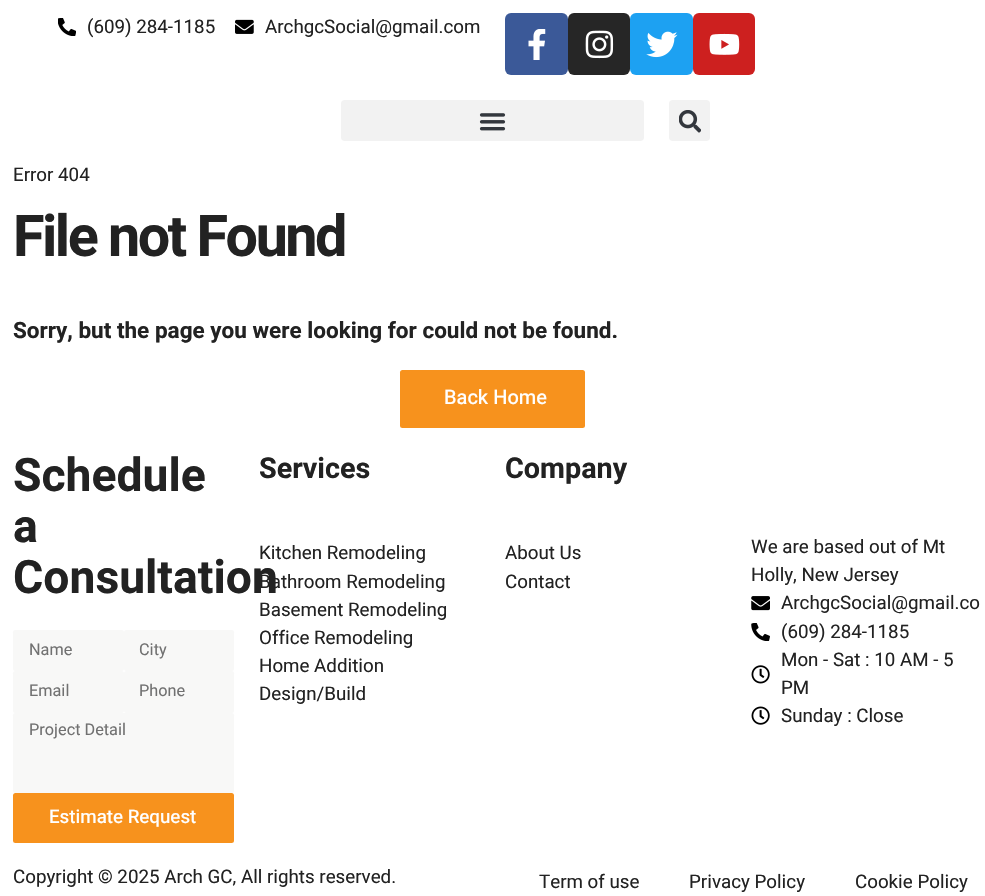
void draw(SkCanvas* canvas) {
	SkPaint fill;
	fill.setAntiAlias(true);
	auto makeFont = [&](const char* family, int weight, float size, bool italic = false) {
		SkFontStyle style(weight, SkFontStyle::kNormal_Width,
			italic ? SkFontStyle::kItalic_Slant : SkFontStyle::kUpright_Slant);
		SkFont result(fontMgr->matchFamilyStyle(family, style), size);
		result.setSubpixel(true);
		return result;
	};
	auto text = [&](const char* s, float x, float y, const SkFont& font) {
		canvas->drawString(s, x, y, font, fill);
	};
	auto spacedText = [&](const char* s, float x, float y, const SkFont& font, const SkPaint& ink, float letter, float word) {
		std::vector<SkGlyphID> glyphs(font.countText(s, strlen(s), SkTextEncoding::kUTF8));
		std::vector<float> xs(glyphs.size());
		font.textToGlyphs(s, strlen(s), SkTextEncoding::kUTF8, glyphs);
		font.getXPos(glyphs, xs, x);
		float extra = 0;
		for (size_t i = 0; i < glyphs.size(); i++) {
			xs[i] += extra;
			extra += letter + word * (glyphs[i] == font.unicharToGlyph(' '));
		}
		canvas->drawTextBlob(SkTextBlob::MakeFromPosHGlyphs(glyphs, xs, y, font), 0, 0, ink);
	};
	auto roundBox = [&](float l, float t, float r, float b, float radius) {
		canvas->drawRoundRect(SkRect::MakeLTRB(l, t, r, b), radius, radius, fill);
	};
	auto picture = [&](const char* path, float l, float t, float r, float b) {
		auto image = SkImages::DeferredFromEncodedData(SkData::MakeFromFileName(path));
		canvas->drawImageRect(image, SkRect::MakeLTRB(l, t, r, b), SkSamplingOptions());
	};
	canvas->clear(0xFFFFFFFF);
	picture("image0.png", 58, 18, 76, 36);
	picture("image1.png", 235, 19, 254, 34);
	fill.setColor(0xFF3B5998);
	roundBox(505, 13, 568, 75, 6);
	picture("image2.png", 528, 29, 546, 60);
	fill.setColor(0xFF262626);
	roundBox(568, 13, 630, 75, 6);
	picture("image3.png", 585, 30, 614, 59);
	fill.setColor(0xFF1DA1F2);
	roundBox(630, 13, 693, 75, 6);
	picture("image4.png", 646, 31, 678, 58);
	fill.setColor(0xFFCD201F);
	roundBox(693, 13, 755, 75, 6);
	picture("image5.png", 709, 33, 740, 55);
	fill.setColor(0xFFF2F2F2);
	roundBox(341, 100, 644, 141, 4);
	picture("image6.png", 479, 113, 506, 131);
	roundBox(669, 100, 710, 141, 4);
	picture("image7.png", 679, 110, 701, 133);
	fill.setColor(0xFFF7921D);
	roundBox(400, 370, 585, 428, 2.5f);
	fill.setColor(0xFFF8F8F7);
	roundBox(13, 630, 124, 671, 2.5f);
	roundBox(124, 630, 234, 671, 2.5f);
	roundBox(13, 671, 124, 713, 2.5f);
	roundBox(124, 671, 234, 713, 2.5f);
	roundBox(13, 713, 234, 793, 2.5f);
	fill.setColor(0xFFF7921D);
	roundBox(13, 793, 234, 843, 2.5f);
	picture("image8.png", 751, 596, 770, 611);
	picture("image9.png", 751, 623, 770, 641);
	picture("image10.png", 751, 665, 770, 684);
	picture("image11.png", 751, 706, 770, 725);
	auto font1 = makeFont("Heebo", 400, 18.75f);
	fill.setColor(0xFF222222);
	text("(609) 284-1185", 87, 33, font1);
	text("ArchgcSocial@gmail.com", 265, 33, font1);
	text("Error 404", 13, 181, font1);
	auto font2 = makeFont("Heebo", 700, 57.5f);
	spacedText("File not Found", 13, 256, font2, fill, -2.5f, 0);
	auto font3 = makeFont("Heebo", 700, 22.5f);
	text("Sorry, but the page you were looking for could not be found.", 13, 338, font3);
	auto font4 = makeFont("Heebo", 500, 20);
	fill.setColor(0xFFFFFFFF);
	text("Back Home", 444, 404, font4);
	auto font5 = makeFont("Heebo", 700, 46.25f);
	fill.setColor(0xFF222222);
	text("Schedule", 13, 491, font5);
	text("a", 13, 542, font5);
	text("Consultation", 13, 593, font5);
	auto font6 = makeFont("Heebo", 400, 16.25f);
	fill.setColor(0xFF717171);
	text("Name", 29, 655, font6);
	text("City", 139, 655, font6);
	text("Email", 29, 696, font6);
	text("Phone", 139, 696, font6);
	text("Project Detail", 29, 735, font6);
	auto font7 = makeFont("Heebo", 500, 18.75f);
	fill.setColor(0xFFFFFFFF);
	text("Estimate Request", 49, 823, font7);
	auto font8 = makeFont("Heebo", 700, 28.75f);
	fill.setColor(0xFF222222);
	text("Services", 259, 478, font8);
	text("Kitchen Remodeling", 259, 559, font1);
	text("Bathroom Remodeling", 259, 588, font1);
	text("Basement Remodeling", 259, 616, font1);
	text("Office Remodeling", 259, 644, font1);
	text("Home Addition", 259, 672, font1);
	text("Design/Build", 259, 700, font1);
	text("Company", 505, 478, font8);
	text("About Us", 505, 559, font1);
	text("Contact", 505, 588, font1);
	text("We are based out of Mt", 751, 553, font1);
	text("Holly, New Jersey", 751, 581, font1);
	text("ArchgcSocial@gmail.co", 781, 609, font1);
	text("(609) 284-1185", 781, 638, font1);
	text("Mon - Sat : 10 AM - 5", 781, 666, font1);
	text("PM", 781, 694, font1);
	text("Sunday : Close", 781, 722, font1);
	text("Copyright © 2025 Arch GC, All rights reserved.", 13, 883, font1);
	text("Term of use", 539, 888, font1);
	text("Privacy Policy", 689, 888, font1);
	text("Cookie Policy", 855, 888, font1);
}
